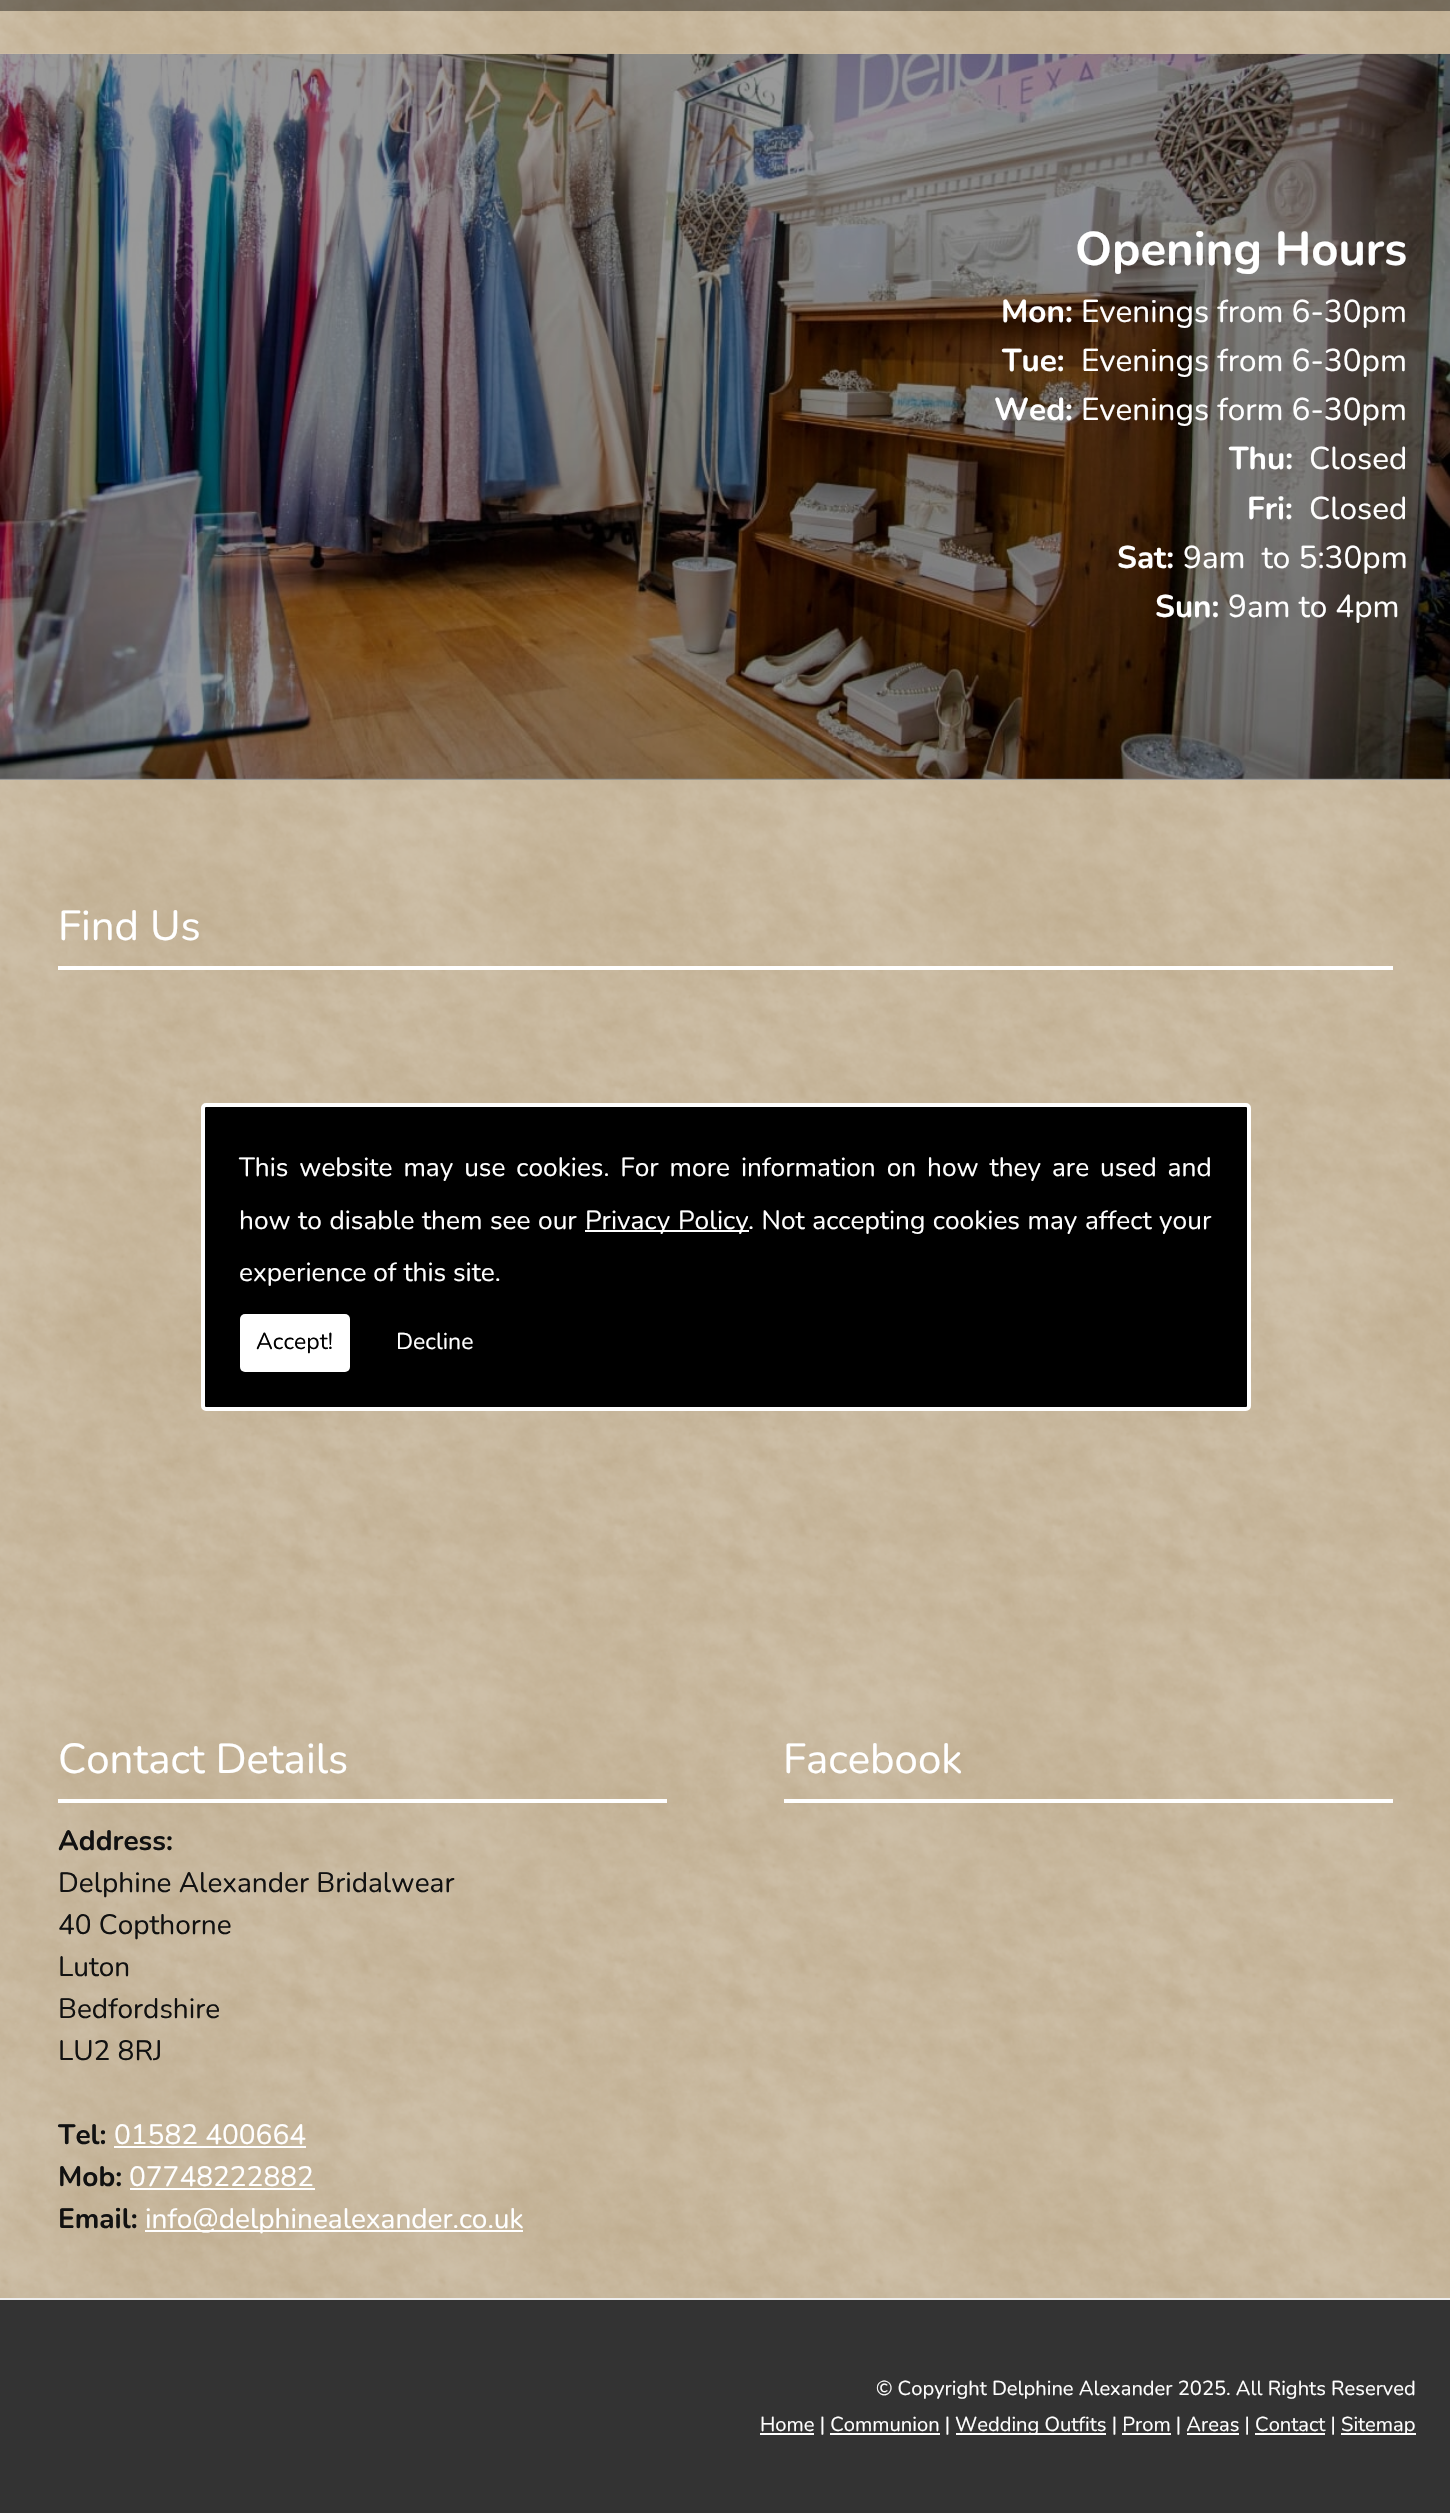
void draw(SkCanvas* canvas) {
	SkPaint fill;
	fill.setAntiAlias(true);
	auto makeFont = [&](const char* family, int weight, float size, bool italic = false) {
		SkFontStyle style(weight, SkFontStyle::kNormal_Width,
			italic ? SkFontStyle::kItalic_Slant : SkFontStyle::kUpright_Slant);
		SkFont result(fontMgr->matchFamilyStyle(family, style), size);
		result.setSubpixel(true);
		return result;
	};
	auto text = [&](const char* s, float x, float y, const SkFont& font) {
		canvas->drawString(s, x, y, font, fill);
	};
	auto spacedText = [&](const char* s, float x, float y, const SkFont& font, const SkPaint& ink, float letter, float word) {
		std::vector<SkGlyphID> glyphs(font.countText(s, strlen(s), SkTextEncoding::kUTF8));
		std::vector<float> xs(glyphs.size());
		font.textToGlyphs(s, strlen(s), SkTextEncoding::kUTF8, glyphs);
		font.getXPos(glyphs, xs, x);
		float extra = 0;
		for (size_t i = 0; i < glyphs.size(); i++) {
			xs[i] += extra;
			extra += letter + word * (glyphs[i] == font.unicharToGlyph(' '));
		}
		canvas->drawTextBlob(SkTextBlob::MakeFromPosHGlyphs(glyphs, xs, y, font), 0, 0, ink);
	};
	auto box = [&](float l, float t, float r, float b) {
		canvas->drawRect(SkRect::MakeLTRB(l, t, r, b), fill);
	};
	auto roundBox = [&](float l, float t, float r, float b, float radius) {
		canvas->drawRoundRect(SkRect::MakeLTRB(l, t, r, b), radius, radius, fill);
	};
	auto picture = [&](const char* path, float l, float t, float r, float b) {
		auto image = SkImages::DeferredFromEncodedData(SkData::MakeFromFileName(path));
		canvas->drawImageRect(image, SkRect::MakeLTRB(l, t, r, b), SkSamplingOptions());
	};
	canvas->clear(0xFFBEAB8C);
	picture("image0.png", 0, 0, 1450, 2298);
	fill.setColor(0x66000000);
	box(0, 0, 1450, 11);
	picture("image1.png", 0, 53, 1450, 780);
	fill.setColor(0xFFFFFFFF);
	box(58, 966, 1393, 970);
	box(58, 1799, 667, 1803);
	box(114, 2146, 306, 2148);
	box(130, 2188, 315, 2190);
	box(145, 2230, 523, 2232);
	box(784, 1799, 1393, 1803);
	fill.setColor(0xFFEEEEEE);
	box(0, 2298, 1450, 2300);
	fill.setColor(0xFF333333);
	box(0, 2300, 1450, 2513);
	fill.setColor(0xFFFFFFFF);
	box(760, 2433, 814, 2435);
	box(830, 2433, 940, 2435);
	box(956, 2433, 1106, 2435);
	box(1122, 2433, 1171, 2435);
	box(1187, 2433, 1239, 2435);
	box(1255, 2433, 1325, 2435);
	box(1341, 2433, 1416, 2435);
	fill.setColor(0xFF000000);
	canvas->drawRoundRect(SkRect::MakeLTRB(203, 1105, 1249, 1409), 3, 3, fill);
	fill.setStyle(SkPaint::kStroke_Style);
	fill.setStrokeWidth(4);
	fill.setColor(0xFFFFFFFF);
	canvas->drawRoundRect(SkRect::MakeLTRB(203, 1105, 1249, 1409), 3, 3, fill);
	fill.setStyle(SkPaint::kFill_Style);
	box(585, 1230, 749, 1232);
	roundBox(240, 1314, 350, 1372, 5);
	auto font1 = makeFont("Nunito", 700, 47.25f);
	text("Opening Hours", 1075, 265, font1);
	auto font2 = makeFont("Nunito", 700, 31.5f);
	text("Mon:", 1001, 322, font2);
	auto font3 = makeFont("Nunito", 400, 31.5f);
	text("Evenings from 6-30pm", 1081, 322, font3);
	text("Tue:", 1002, 371, font2);
	text("Evenings from 6-30pm", 1081, 371, font3);
	text("Wed:", 994, 420, font2);
	text("Evenings form 6-30pm", 1081, 420, font3);
	text("Thu:", 1229, 469, font2);
	text("Closed", 1309, 469, font3);
	text("Fri:", 1247, 519, font2);
	text("Closed", 1309, 519, font3);
	text("Sat:", 1117, 568, font2);
	text("9am  to 5:30pm", 1183, 568, font3);
	text("Sun:", 1155, 617, font2);
	text("9am to 4pm", 1228, 617, font3);
	auto font4 = makeFont("Nunito", 400, 42);
	text("Find Us", 58, 940, font4);
	text("Contact Details", 58, 1773, font4);
	auto font5 = makeFont("Nunito", 700, 28);
	fill.setColor(0xFF111111);
	text("Address:", 58, 1850, font5);
	auto font6 = makeFont("Nunito", 400, 28);
	text("Delphine Alexander Bridalwear", 58, 1892, font6);
	text("40 Copthorne", 58, 1934, font6);
	text("Luton", 58, 1976, font6);
	text("Bedfordshire", 58, 2018, font6);
	text("LU2 8RJ", 58, 2060, font6);
	text("Tel:", 58, 2144, font5);
	fill.setColor(0xFFFFFFFF);
	text("01582 400664", 114, 2144, font6);
	fill.setColor(0xFF111111);
	text("Mob:", 58, 2186, font5);
	fill.setColor(0xFFFFFFFF);
	text("07748222882", 129, 2186, font6);
	fill.setColor(0xFF111111);
	text("Email:", 58, 2228, font5);
	fill.setColor(0xFFFFFFFF);
	text("info@delphinealexander.co.uk", 145, 2228, font6);
	text("Facebook", 783, 1773, font4);
	auto font7 = makeFont("Nunito", 400, 20.15f);
	text("© Copyright Delphine Alexander 2025. All Rights Reserved", 876, 2395, font7);
	text("Home | Communion |", 760, 2431, font7);
	text("Wedding Outfits | Prom | Areas | Contact |", 955, 2431, font7);
	text("Sitemap", 1341, 2431, font7);
	auto font8 = makeFont("Nunito", 400, 26.25f);
	spacedText("This website may use cookies. For more information on how they are used and", 239, 1176, font8, fill, 0, 4.1f);
	spacedText("how to disable them see our", 239, 1229, font8, fill, 0, 0.75f);
	spacedText("Privacy Policy", 585, 1229, font8, fill, 0, 1);
	spacedText(". Not accepting cookies may affect your", 748, 1229, font8, fill, 0, 0.75f);
	text("experience of this site.", 239, 1281, font8);
	auto font9 = makeFont("Nunito", 400, 23);
	fill.setColor(0xFF000000);
	text("Accept!", 256, 1349, font9);
	fill.setColor(0xFFFFFFFF);
	text("Decline", 396, 1349, font9);
}
